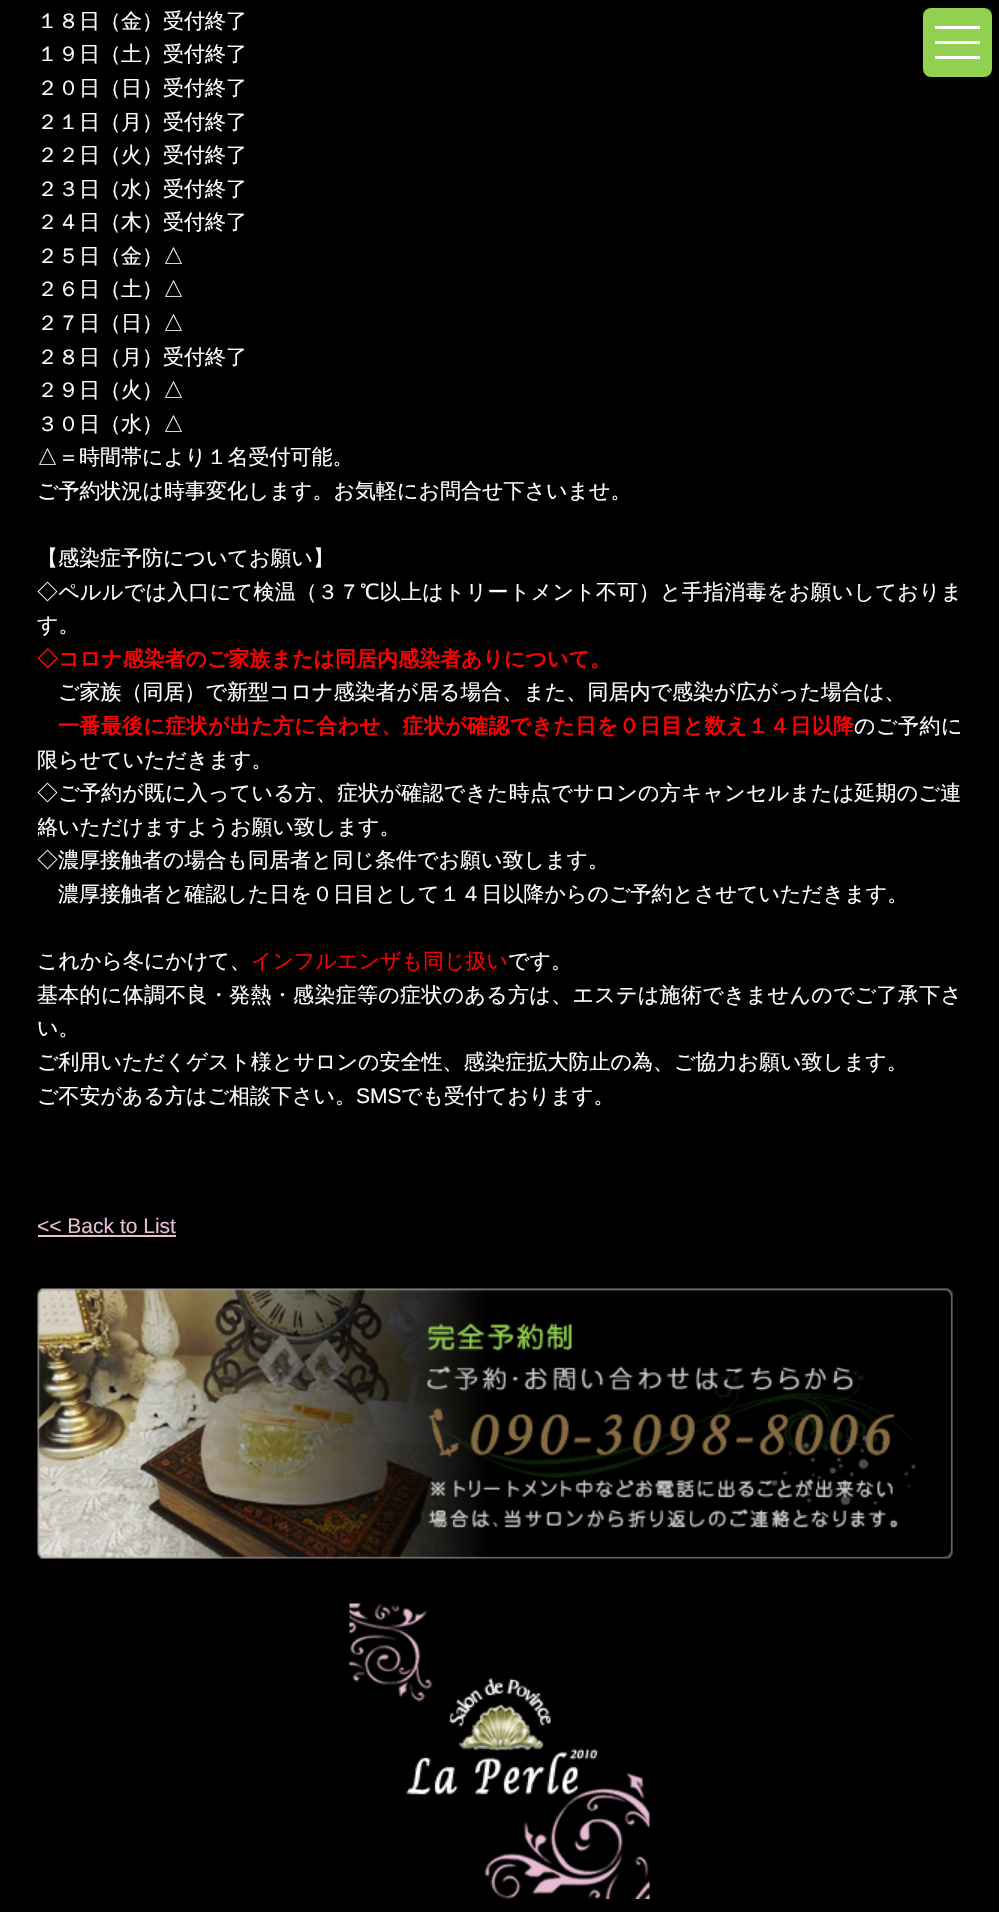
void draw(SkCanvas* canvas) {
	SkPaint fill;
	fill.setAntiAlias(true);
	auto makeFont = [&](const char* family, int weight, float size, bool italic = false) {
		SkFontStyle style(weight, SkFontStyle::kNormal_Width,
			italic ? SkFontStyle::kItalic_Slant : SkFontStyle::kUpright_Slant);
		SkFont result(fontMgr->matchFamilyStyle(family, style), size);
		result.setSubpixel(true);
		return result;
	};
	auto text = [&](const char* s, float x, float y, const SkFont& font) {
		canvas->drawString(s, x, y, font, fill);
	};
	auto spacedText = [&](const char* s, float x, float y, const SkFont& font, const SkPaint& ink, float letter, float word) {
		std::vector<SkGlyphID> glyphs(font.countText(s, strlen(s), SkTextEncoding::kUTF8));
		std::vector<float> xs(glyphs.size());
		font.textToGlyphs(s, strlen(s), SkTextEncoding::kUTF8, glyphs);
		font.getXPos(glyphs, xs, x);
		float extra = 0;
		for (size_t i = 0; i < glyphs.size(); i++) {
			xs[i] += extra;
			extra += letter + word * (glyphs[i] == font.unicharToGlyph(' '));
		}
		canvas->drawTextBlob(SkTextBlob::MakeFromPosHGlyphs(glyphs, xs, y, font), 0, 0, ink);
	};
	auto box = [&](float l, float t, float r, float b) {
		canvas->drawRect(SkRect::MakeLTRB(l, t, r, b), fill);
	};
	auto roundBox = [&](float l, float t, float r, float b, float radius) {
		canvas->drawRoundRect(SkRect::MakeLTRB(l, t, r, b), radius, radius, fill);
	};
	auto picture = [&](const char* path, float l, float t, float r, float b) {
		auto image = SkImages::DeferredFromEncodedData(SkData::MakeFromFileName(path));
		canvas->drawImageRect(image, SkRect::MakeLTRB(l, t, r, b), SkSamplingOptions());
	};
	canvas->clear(0xFF000000);
	fill.setColor(0xFF92D050);
	roundBox(923, 8, 992, 77, 8);
	fill.setColor(0xFFFFFFFF);
	box(935, 41, 980, 44);
	box(935, 26, 980, 29);
	box(935, 56, 980, 59);
	fill.setColor(0xFFE9BBD4);
	box(38, 1235, 176, 1237);
	picture("image0.png", 37, 1288, 953, 1559);
	picture("image1.png", 349, 1603, 650, 1899);
	auto font1 = makeFont("WenQuanYi Zen Hei", 500, 21);
	fill.setColor(0xFFFFFFFF);
	text("１８日（金）受付終了", 37, 28, font1);
	text("１９日（土）受付終了", 37, 61, font1);
	text("２０日（日）受付終了", 37, 95, font1);
	text("２１日（月）受付終了", 37, 129, font1);
	text("２２日（火）受付終了", 37, 162, font1);
	text("２３日（水）受付終了", 37, 196, font1);
	text("２４日（木）受付終了", 37, 229, font1);
	text("２５日（金）△", 37, 263, font1);
	text("２６日（土）△", 37, 296, font1);
	text("２７日（日）△", 37, 330, font1);
	text("２８日（月）受付終了", 37, 364, font1);
	text("２９日（火）△", 37, 397, font1);
	text("３０日（水）△", 37, 431, font1);
	text("△＝時間帯により１名受付可能。", 37, 464, font1);
	text("ご予約状況は時事変化します。お気軽にお問合せ下さいませ。", 37, 498, font1);
	text("【感染症予防についてお願い】", 37, 565, font1);
	spacedText("◇ペルルでは入口にて検温（３７℃以上はトリートメント不可）と手指消毒をお願いしておりま", 37, 599, font1, fill, 0.3f, 0);
	text("す。", 37, 632, font1);
	auto font2 = makeFont("WenQuanYi Zen Hei", 700, 21);
	fill.setColor(0xFFFF0000);
	text("◇コロナ感染者のご家族または同居内感染者ありについて。", 37, 666, font2);
	fill.setColor(0xFFFFFFFF);
	text("ご家族（同居）で新型コロナ感染者が居る場合、また、同居内で感染が広がった場合は、", 58, 699, font1);
	fill.setColor(0xFFFF0000);
	spacedText("一番最後に症状が出た方に合わせ、症状が確認できた日を０日目と数え１４日以降", 58, 733, font2, fill, 0.35f, 0);
	fill.setColor(0xFFFFFFFF);
	spacedText("のご予約に", 854, 733, font1, fill, 0.5f, 0);
	text("限らせていただきます。", 37, 767, font1);
	spacedText("◇ご予約が既に入っている方、症状が確認できた時点でサロンの方キャンセルまたは延期のご連", 37, 800, font1, fill, 0.2f, 0);
	canvas->save();
	canvas->clipRect(SkRect::MakeLTRB(38, 0, 962, 1179));
	text("絡いただけますようお願い致します。", 37, 834, font1);
	canvas->restore();
	text("◇濃厚接触者の場合も同居者と同じ条件でお願い致します。", 37, 867, font1);
	text("濃厚接触者と確認した日を０日目として１４日以降からのご予約とさせていただきます。", 58, 901, font1);
	text("これから冬にかけて、", 37, 968, font1);
	fill.setColor(0xFFFF0000);
	text("インフルエンザも同じ扱い", 251, 968, font1);
	fill.setColor(0xFFFFFFFF);
	text("です。", 508, 968, font1);
	spacedText("基本的に体調不良・発熱・感染症等の症状のある方は、エステは施術できませんのでご了承下さ", 37, 1002, font1, fill, 0.3f, 0);
	text("い。", 37, 1035, font1);
	text("ご利用いただくゲスト様とサロンの安全性、感染症拡大防止の為、ご協力お願い致します。", 37, 1069, font1);
	text("ご不安がある方はご相談下さい。", 37, 1103, font1);
	auto font3 = makeFont("Liberation Sans", 400, 21);
	text("SMS", 356, 1103, font3);
	text("でも受付ております。", 401, 1103, font1);
	fill.setColor(0xFFE9BBD4);
	text("<< Back to List", 37, 1233, font3);
}
